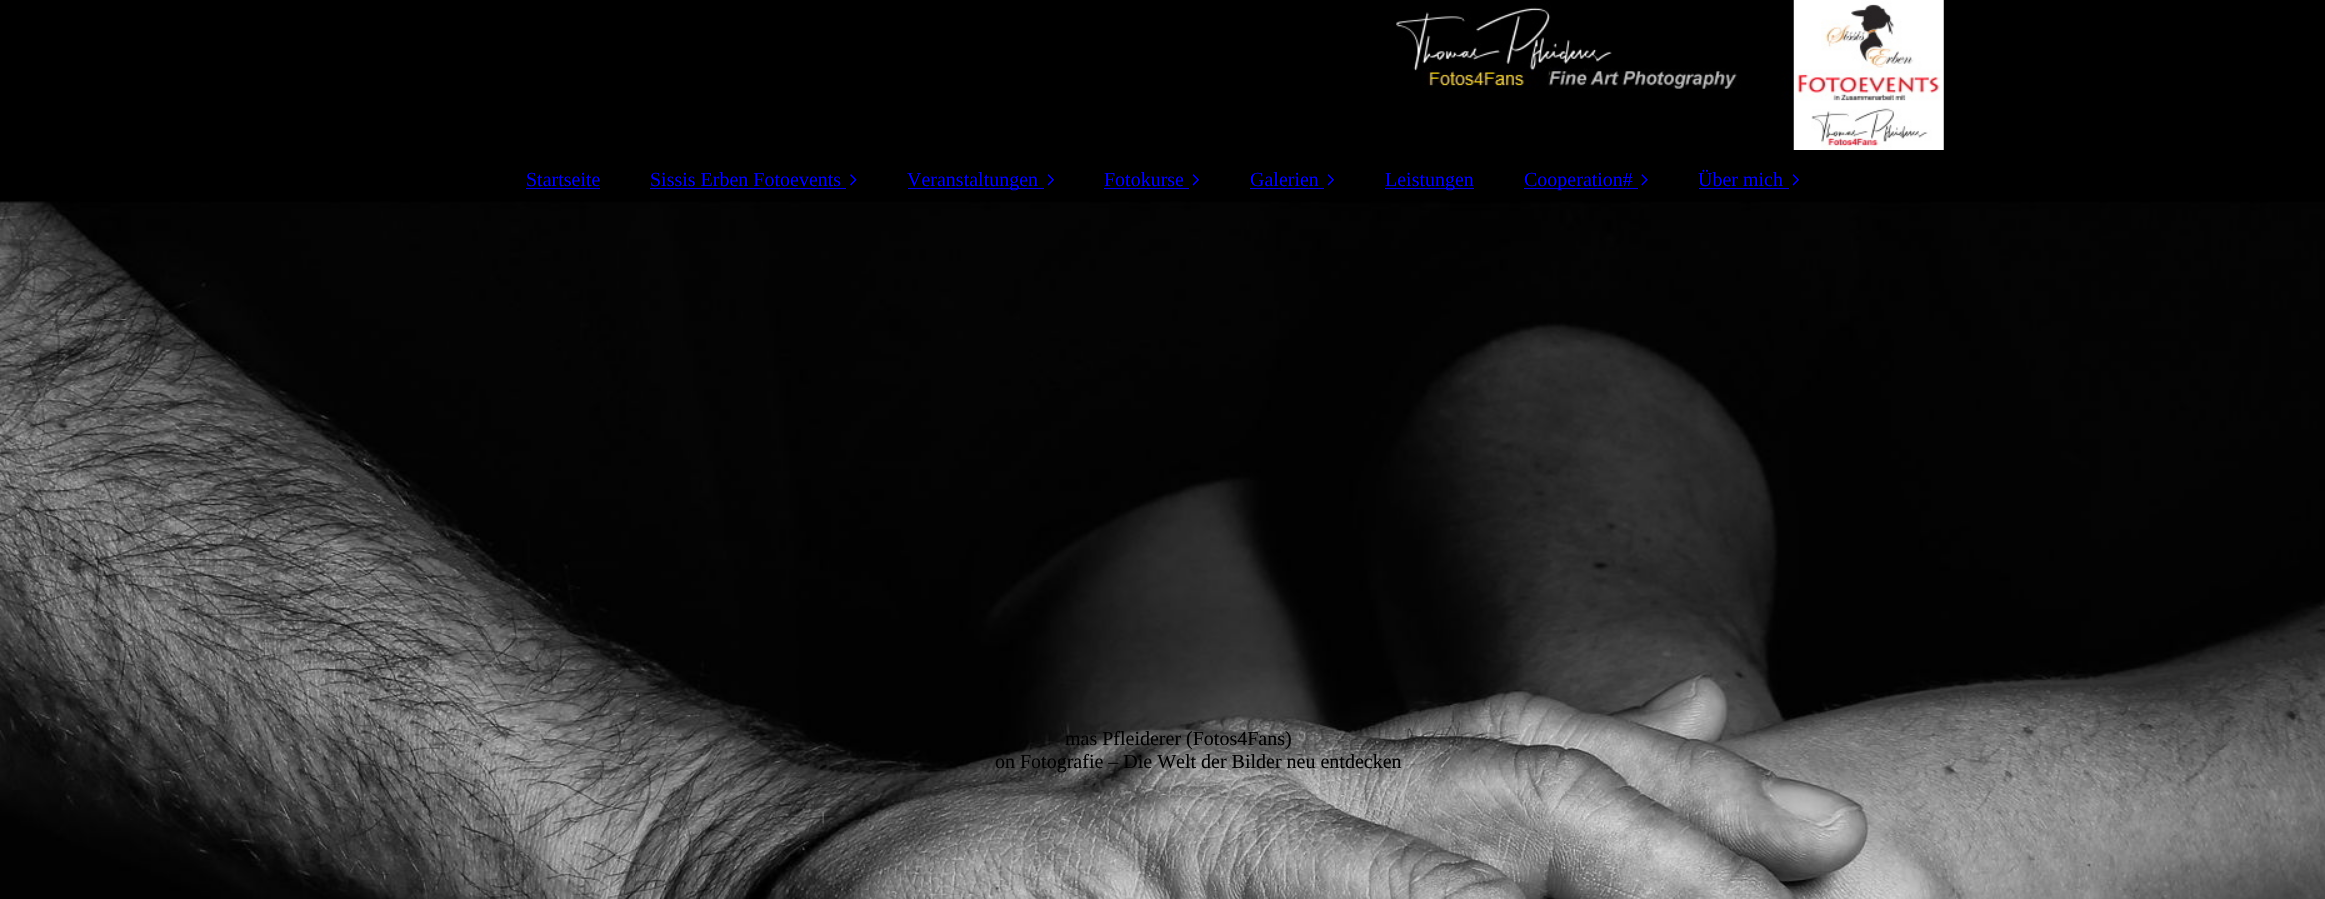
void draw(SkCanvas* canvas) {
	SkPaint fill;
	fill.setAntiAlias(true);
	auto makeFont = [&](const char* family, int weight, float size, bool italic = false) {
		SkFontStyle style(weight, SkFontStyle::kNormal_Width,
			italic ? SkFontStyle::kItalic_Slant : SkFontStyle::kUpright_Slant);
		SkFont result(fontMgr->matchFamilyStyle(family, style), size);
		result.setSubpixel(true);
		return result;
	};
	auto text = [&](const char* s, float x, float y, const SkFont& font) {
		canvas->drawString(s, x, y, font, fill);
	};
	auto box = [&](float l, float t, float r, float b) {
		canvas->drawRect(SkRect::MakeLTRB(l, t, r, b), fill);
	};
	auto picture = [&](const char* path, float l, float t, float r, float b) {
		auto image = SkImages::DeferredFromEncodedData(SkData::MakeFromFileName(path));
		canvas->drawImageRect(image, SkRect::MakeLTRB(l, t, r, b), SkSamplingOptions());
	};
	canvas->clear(0xFFFFFFFF);
	picture("image0.png", 0, 0, 2325, 899);
	picture("image1.png", 1396, 0, 1944, 150);
	fill.setColor(0xFF0000EE);
	box(526, 188, 600, 189);
	box(650, 188, 846, 189);
	picture("image2.png", 850, 174, 857, 186);
	box(908, 188, 1044, 189);
	picture("image3.png", 1047, 174, 1055, 186);
	box(1104, 188, 1189, 189);
	picture("image3.png", 1192, 174, 1200, 186);
	box(1250, 188, 1324, 189);
	picture("image3.png", 1327, 174, 1335, 186);
	box(1385, 188, 1474, 189);
	box(1524, 188, 1638, 189);
	picture("image4.png", 1641, 174, 1648, 186);
	box(1699, 188, 1789, 189);
	picture("image3.png", 1792, 174, 1800, 186);
	auto font1 = makeFont("Liberation Serif", 400, 20);
	text("Startseite", 526, 186, font1);
	text("Sissis Erben Fotoevents", 650, 186, font1);
	text("Veranstaltungen", 907, 186, font1);
	text("Fotokurse", 1104, 186, font1);
	text("Galerien", 1250, 186, font1);
	text("Leistungen", 1385, 186, font1);
	text("Cooperation#", 1524, 186, font1);
	text("Über mich", 1698, 186, font1);
	fill.setColor(0xFF000000);
	text("mas Pfleiderer (Fotos4Fans)", 1065, 745, font1);
	text("on Fotografie – Die Welt der Bilder neu entdecken", 995, 768, font1);
}
